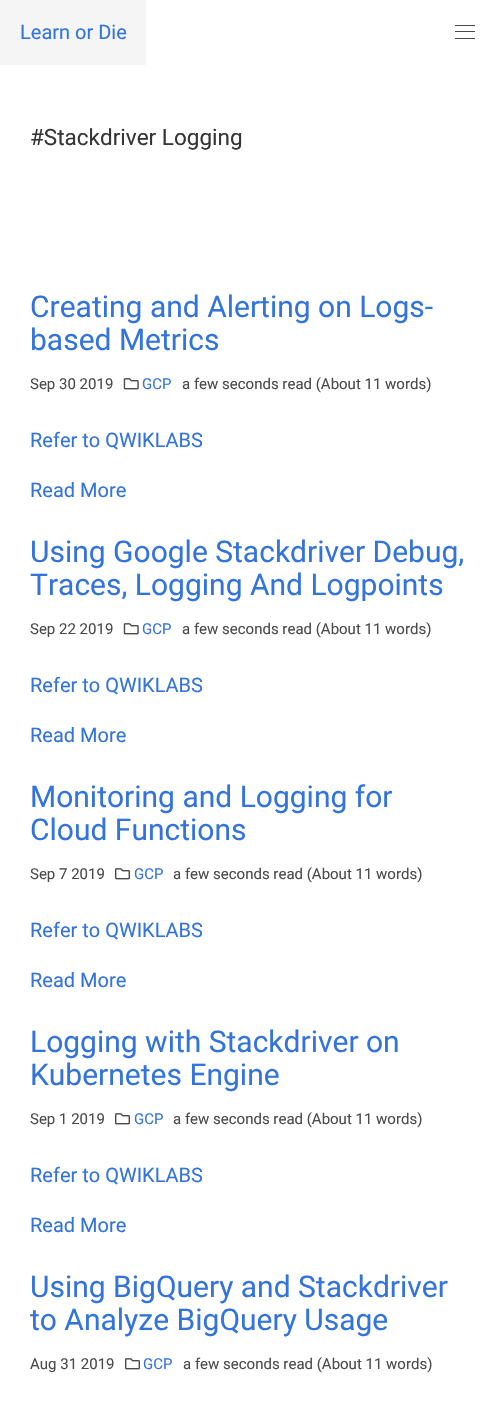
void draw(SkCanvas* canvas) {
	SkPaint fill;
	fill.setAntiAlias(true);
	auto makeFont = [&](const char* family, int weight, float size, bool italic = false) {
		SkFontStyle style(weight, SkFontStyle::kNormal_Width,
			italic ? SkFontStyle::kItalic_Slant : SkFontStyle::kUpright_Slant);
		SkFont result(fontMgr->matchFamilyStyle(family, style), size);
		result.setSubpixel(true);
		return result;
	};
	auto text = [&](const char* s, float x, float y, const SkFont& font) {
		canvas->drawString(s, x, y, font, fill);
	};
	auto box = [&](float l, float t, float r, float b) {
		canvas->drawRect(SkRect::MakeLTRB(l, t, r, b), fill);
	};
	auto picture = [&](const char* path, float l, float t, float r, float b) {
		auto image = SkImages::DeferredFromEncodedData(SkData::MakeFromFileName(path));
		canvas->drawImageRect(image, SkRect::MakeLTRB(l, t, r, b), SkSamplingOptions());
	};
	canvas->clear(0xFFFFFFFF);
	fill.setColor(0xFFF5F5F5);
	box(0, 0, 146, 65);
	fill.setColor(0xFF4A4A4A);
	box(455, 25, 475, 26);
	box(455, 31, 475, 32);
	box(455, 38, 475, 39);
	picture("image0.png", 123, 378, 139, 390);
	picture("image0.png", 123, 623, 139, 635);
	picture("image1.png", 115, 868, 130, 880);
	picture("image1.png", 115, 1113, 130, 1125);
	picture("image1.png", 125, 1358, 140, 1370);
	auto font1 = makeFont("Roboto", 400, 20);
	fill.setColor(0xFF3273DC);
	text("Learn or Die", 20, 39, font1);
	auto font2 = makeFont("Roboto", 400, 22.5f);
	fill.setColor(0xFF363636);
	text("#Stackdriver Logging", 30, 145, font2);
	auto font3 = makeFont("Roboto", 400, 30);
	fill.setColor(0xFF3273DC);
	text("Creating and Alerting on Logs-", 30, 317, font3);
	text("based Metrics", 30, 350, font3);
	auto font4 = makeFont("Roboto", 400, 15);
	fill.setColor(0xFF4A4A4A);
	text("Sep 30 2019", 30, 389, font4);
	fill.setColor(0xFF3273DC);
	text("GCP", 142, 389, font4);
	fill.setColor(0xFF4A4A4A);
	text("a few seconds read (About 11 words)", 182, 389, font4);
	fill.setColor(0xFF3273DC);
	text("Refer to QWIKLABS", 30, 447, font1);
	text("Read More", 30, 497, font1);
	text("Using Google Stackdriver Debug,", 30, 562, font3);
	text("Traces, Logging And Logpoints", 30, 595, font3);
	fill.setColor(0xFF4A4A4A);
	text("Sep 22 2019", 30, 634, font4);
	fill.setColor(0xFF3273DC);
	text("GCP", 142, 634, font4);
	fill.setColor(0xFF4A4A4A);
	text("a few seconds read (About 11 words)", 182, 634, font4);
	fill.setColor(0xFF3273DC);
	text("Refer to QWIKLABS", 30, 692, font1);
	text("Read More", 30, 742, font1);
	text("Monitoring and Logging for", 30, 807, font3);
	text("Cloud Functions", 30, 840, font3);
	fill.setColor(0xFF4A4A4A);
	text("Sep 7 2019", 30, 879, font4);
	fill.setColor(0xFF3273DC);
	text("GCP", 134, 879, font4);
	fill.setColor(0xFF4A4A4A);
	text("a few seconds read (About 11 words)", 173, 879, font4);
	fill.setColor(0xFF3273DC);
	text("Refer to QWIKLABS", 30, 937, font1);
	text("Read More", 30, 987, font1);
	text("Logging with Stackdriver on", 30, 1052, font3);
	text("Kubernetes Engine", 30, 1085, font3);
	fill.setColor(0xFF4A4A4A);
	text("Sep 1 2019", 30, 1124, font4);
	fill.setColor(0xFF3273DC);
	text("GCP", 134, 1124, font4);
	fill.setColor(0xFF4A4A4A);
	text("a few seconds read (About 11 words)", 173, 1124, font4);
	fill.setColor(0xFF3273DC);
	text("Refer to QWIKLABS", 30, 1182, font1);
	text("Read More", 30, 1232, font1);
	text("Using BigQuery and Stackdriver", 30, 1297, font3);
	text("to Analyze BigQuery Usage", 30, 1330, font3);
	fill.setColor(0xFF4A4A4A);
	text("Aug 31 2019", 30, 1369, font4);
	fill.setColor(0xFF3273DC);
	text("GCP", 143, 1369, font4);
	fill.setColor(0xFF4A4A4A);
	text("a few seconds read (About 11 words)", 183, 1369, font4);
}
